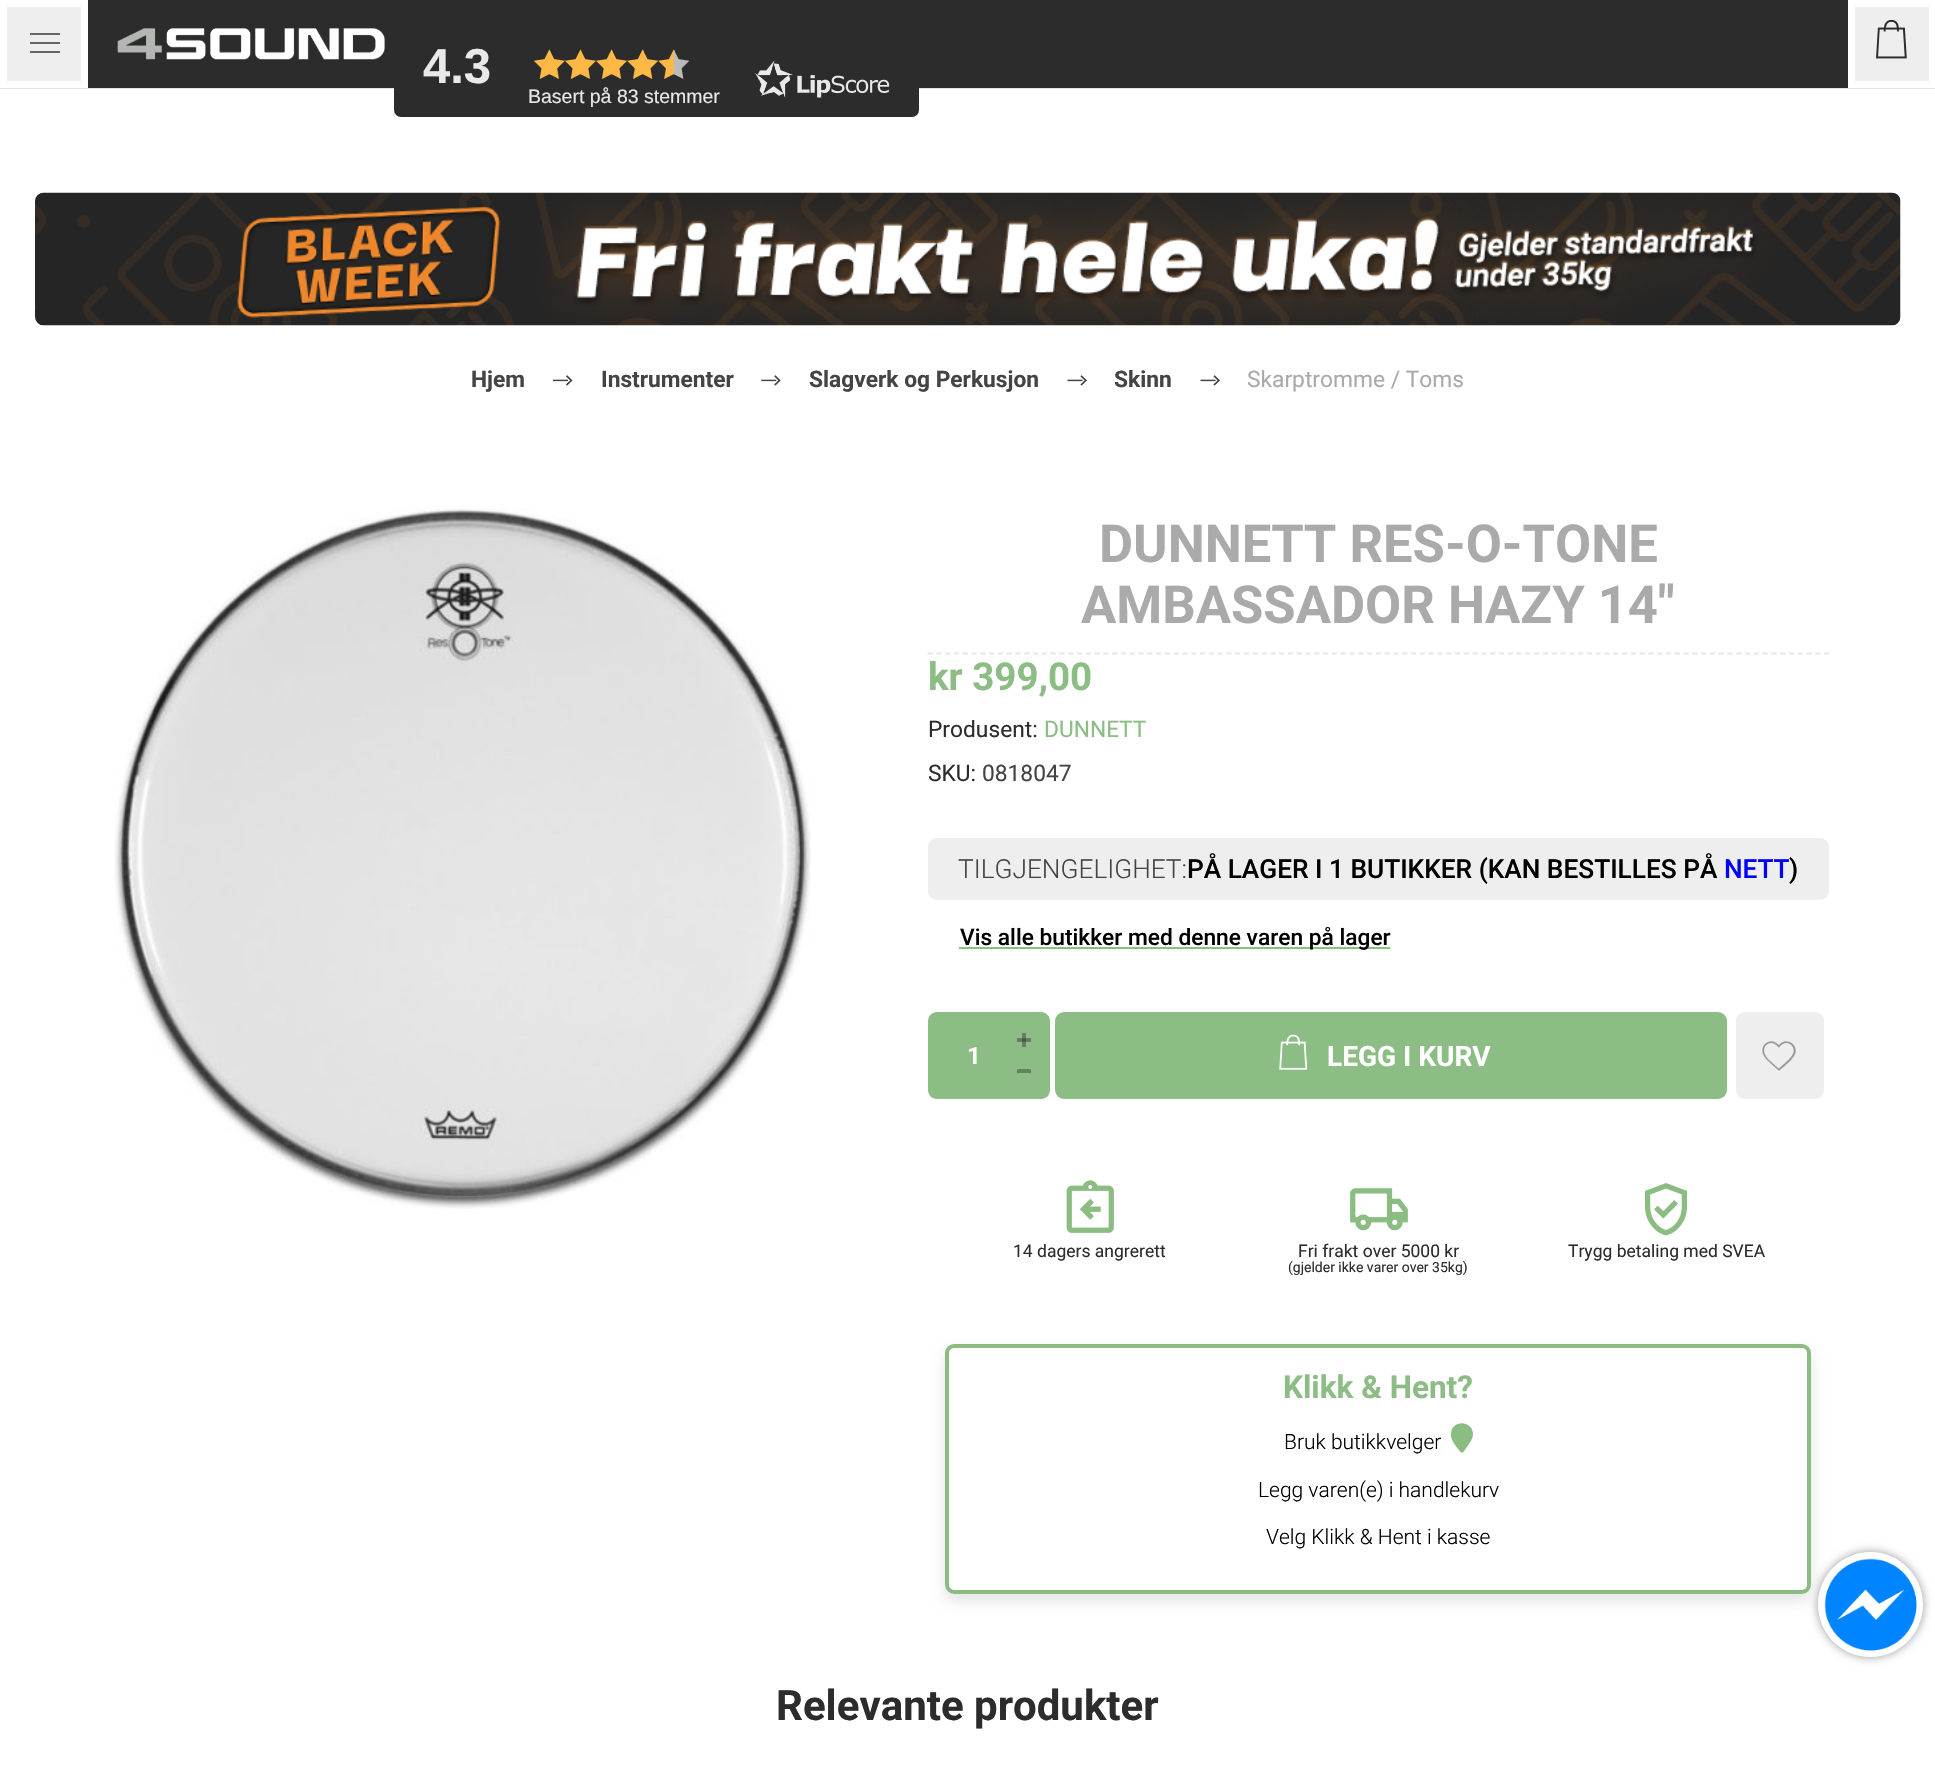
void draw(SkCanvas* canvas) {
	SkPaint fill;
	fill.setAntiAlias(true);
	auto makeFont = [&](const char* family, int weight, float size, bool italic = false) {
		SkFontStyle style(weight, SkFontStyle::kNormal_Width,
			italic ? SkFontStyle::kItalic_Slant : SkFontStyle::kUpright_Slant);
		SkFont result(fontMgr->matchFamilyStyle(family, style), size);
		result.setSubpixel(true);
		return result;
	};
	auto text = [&](const char* s, float x, float y, const SkFont& font) {
		canvas->drawString(s, x, y, font, fill);
	};
	auto box = [&](float l, float t, float r, float b) {
		canvas->drawRect(SkRect::MakeLTRB(l, t, r, b), fill);
	};
	auto roundBox = [&](float l, float t, float r, float b, float radius) {
		canvas->drawRoundRect(SkRect::MakeLTRB(l, t, r, b), radius, radius, fill);
	};
	auto picture = [&](const char* path, float l, float t, float r, float b) {
		auto image = SkImages::DeferredFromEncodedData(SkData::MakeFromFileName(path));
		canvas->drawImageRect(image, SkRect::MakeLTRB(l, t, r, b), SkSamplingOptions());
	};
	canvas->clear(0xFFFFFFFF);
	fill.setColor(0xFFEEEEEE);
	box(7, 7, 81, 81);
	fill.setColor(0xFF666666);
	box(30, 33, 60, 35);
	box(30, 42, 60, 44);
	box(30, 51, 60, 53);
	fill.setColor(0xFFE3E3E3);
	canvas->drawPath(SkPathBuilder().moveTo(0, 88).lineTo(0, 89).lineTo(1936, 89).lineTo(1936, 2).lineTo(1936, 88).close().detach(), fill);
	fill.setColor(0xFF2C2C2C);
	box(88, 0, 1848, 88);
	picture("image0.png", 117, 28, 385, 60);
	roundBox(394, 39, 919, 117, 7);
	picture("image1.png", 534, 49, 890, 98);
	fill.setColor(0xFFEEEEEE);
	box(1855, 7, 1929, 81);
	picture("image2.png", 1876, 19, 1907, 59);
	picture("image3.png", 35, 192, 1901, 326);
	picture("image4.png", 553, 375, 573, 386);
	picture("image5.png", 761, 375, 781, 386);
	picture("image6.png", 1067, 375, 1087, 386);
	picture("image6.png", 1200, 375, 1220, 386);
	picture("image7.png", 114, 508, 811, 1209);
	fill.setStyle(SkPaint::kStroke_Style);
	fill.setStrokeWidth(1.8f);
	fill.setColor(0xFFE6E6E6);
	fill.setPathEffect(SkDashPathEffect::Make({{5.25f, 3.54f}}, 0));
	canvas->drawPath(SkPathBuilder().moveTo(927.5f, 653.5f).lineTo(1829, 653.5f).detach(), fill);
	fill.setPathEffect(nullptr);
	fill.setStyle(SkPaint::kFill_Style);
	fill.setColor(0xFFEEEEEE);
	roundBox(928, 838, 1829, 900, 9);
	fill.setColor(0xFF8CBD84);
	box(959, 947, 1390, 949);
	canvas->drawPath(SkPathBuilder().moveTo(937, 1012).lineTo(998, 1012).lineTo(998, 1099).lineTo(937, 1099).cubicTo(932, 1099, 928, 1095, 928, 1090).lineTo(928, 1021).cubicTo(928, 1016, 932, 1012, 937, 1012).close().detach(), fill);
	canvas->drawPath(SkPathBuilder().moveTo(998, 1012).lineTo(1041, 1012).cubicTo(1046, 1012, 1050, 1016, 1050, 1021).lineTo(1050, 1055).lineTo(998, 1055).close().detach(), fill);
	fill.setColor(0xFF62845C);
	box(1022, 1033, 1026, 1047);
	box(1017, 1038, 1031, 1042);
	fill.setColor(0xFF455C40);
	box(1022, 1038, 1026, 1042);
	fill.setColor(0xFF8CBD84);
	canvas->drawPath(SkPathBuilder().moveTo(998, 1055).lineTo(1050, 1055).lineTo(1050, 1090).cubicTo(1050, 1095, 1046, 1099, 1041, 1099).lineTo(998, 1099).close().detach(), fill);
	fill.setColor(0xFF62845C);
	box(1017, 1069, 1031, 1073);
	fill.setColor(0xFF8CBD84);
	roundBox(1055, 1012, 1727, 1099, 9);
	picture("image8.png", 1279, 1034, 1308, 1070);
	fill.setColor(0xFFEEEEEE);
	roundBox(1736, 1012, 1824, 1099, 9);
	picture("image9.png", 1762, 1041, 1796, 1071);
	picture("image10.png", 1066, 1180, 1114, 1233);
	picture("image11.png", 1350, 1188, 1408, 1231);
	picture("image12.png", 1645, 1183, 1687, 1236);
	canvas->save();
	canvas->clipPath(SkPathBuilder(SkPathFillType::kEvenOdd).moveTo(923, 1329).lineTo(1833, 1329).lineTo(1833, 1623).lineTo(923, 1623).close().moveTo(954, 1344).lineTo(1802, 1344).cubicTo(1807, 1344, 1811, 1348, 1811, 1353).lineTo(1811, 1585).cubicTo(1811, 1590, 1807, 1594, 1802, 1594).lineTo(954, 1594).cubicTo(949, 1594, 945, 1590, 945, 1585).lineTo(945, 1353).cubicTo(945, 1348, 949, 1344, 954, 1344).close().detach(), true);
	fill.setColor(0x1A000000);
	fill.setMaskFilter(SkMaskFilter::MakeBlur(kNormal_SkBlurStyle, 7));
	canvas->drawRoundRect(SkRect::MakeLTRB(945, 1351, 1811, 1601), 9, 9, fill);
	fill.setMaskFilter(nullptr);
	canvas->restore();
	fill.setStyle(SkPaint::kStroke_Style);
	fill.setStrokeWidth(4);
	fill.setColor(0xFF8BBD83);
	canvas->drawRoundRect(SkRect::MakeLTRB(947, 1346, 1809, 1592), 7, 7, fill);
	fill.setStyle(SkPaint::kFill_Style);
	canvas->drawPath(SkPathBuilder().moveTo(1473, 1434).cubicTo(1473, 1438.5f, 1470, 1442.5f, 1467.5f, 1446).cubicTo(1462, 1454.5f, 1462.5f, 1455, 1456.5f, 1447).cubicTo(1454, 1443.5f, 1450.5f, 1438.5f, 1451, 1434).cubicTo(1451, 1419.5f, 1472.5f, 1419.5f, 1473, 1434).close().detach(), fill);
	canvas->save();
	canvas->clipPath(SkPathBuilder(SkPathFillType::kEvenOdd).moveTo(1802, 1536).lineTo(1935, 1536).lineTo(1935, 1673).lineTo(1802, 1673).close().moveTo(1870.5f, 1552).cubicTo(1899.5f, 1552, 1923, 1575.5f, 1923, 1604.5f).cubicTo(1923, 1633.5f, 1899.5f, 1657, 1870.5f, 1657).cubicTo(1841.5f, 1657, 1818, 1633.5f, 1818, 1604.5f).cubicTo(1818, 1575.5f, 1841.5f, 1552, 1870.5f, 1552).close().detach(), true);
	fill.setColor(0xFF999999);
	fill.setMaskFilter(SkMaskFilter::MakeBlur(kNormal_SkBlurStyle, 5));
	canvas->drawRoundRect(SkRect::MakeLTRB(1818, 1552, 1923, 1657), 52.5f, 52.5f, fill);
	fill.setMaskFilter(nullptr);
	canvas->restore();
	picture("image13.png", 1824, 1558, 1917, 1651);
	auto font1 = makeFont("Liberation Sans", 700, 49);
	fill.setColor(0xFFE9E9E9);
	text("4.3", 423, 83, font1);
	auto font2 = makeFont("Liberation Sans", 400, 19.5f);
	text("Basert på 83 stemmer", 528, 103, font2);
	auto font3 = makeFont("Roboto", 700, 22.75f);
	fill.setColor(0xFF444444);
	text("Hjem", 471, 387, font3);
	text("Instrumenter", 601, 387, font3);
	text("Slagverk og Perkusjon", 809, 387, font3);
	text("Skinn", 1114, 387, font3);
	auto font4 = makeFont("Roboto", 400, 22.75f);
	fill.setColor(0xFFAAAAAA);
	text("Skarptromme / Toms", 1247, 387, font4);
	auto font5 = makeFont("Roboto", 700, 52.5f);
	text("DUNNETT RES-O-TONE", 1099, 562, font5);
	text("AMBASSADOR HAZY 14\"", 1081, 623, font5);
	auto font6 = makeFont("Roboto", 700, 38.5f);
	fill.setColor(0xFF8CBD84);
	text("kr 399,00", 928, 690, font6);
	fill.setColor(0xFF2C2C2C);
	text("Produsent:", 928, 737, font4);
	fill.setColor(0xFF8CBD84);
	text("DUNNETT", 1044, 737, font4);
	fill.setColor(0xFF2C2C2C);
	text("SKU:", 928, 781, font4);
	fill.setColor(0xFF444444);
	text("0818047", 982, 781, font4);
	auto font7 = makeFont("Roboto", 300, 26.25f);
	text("TILGJENGELIGHET:", 958, 878, font7);
	auto font8 = makeFont("Roboto", 500, 26.25f);
	fill.setColor(0xFF000000);
	text("PÅ LAGER I 1 BUTIKKER (KAN BESTILLES PÅ", 1187, 878, font8);
	fill.setColor(0xFF0000FF);
	text("NETT", 1724, 878, font8);
	fill.setColor(0xFF000000);
	text(")", 1789, 878, font8);
	auto font9 = makeFont("Roboto", 500, 22.75f);
	text("Vis alle butikker med denne varen på lager", 960, 945, font9);
	auto font10 = makeFont("Roboto", 700, 24);
	fill.setColor(0xFFFFFFFF);
	text("1", 967, 1064, font10);
	auto font11 = makeFont("Roboto", 700, 28);
	text("LEGG I KURV", 1327, 1066, font11);
	auto font12 = makeFont("Roboto", 400, 17.5f);
	fill.setColor(0xFF2C2C2C);
	text("14 dagers angrerett", 1013, 1257, font12);
	text("Fri frakt over 5000 kr", 1298, 1257, font12);
	auto font13 = makeFont("Roboto", 400, 14);
	text("(gjelder ikke varer over 35kg)", 1288, 1272, font13);
	text("Trygg betaling med SVEA", 1568, 1257, font12);
	auto font14 = makeFont("Roboto", 700, 31.5f);
	fill.setColor(0xFF8CBD84);
	text("Klikk & Hent?", 1283, 1398, font14);
	auto font15 = makeFont("Roboto", 300, 21);
	fill.setColor(0xFF000000);
	text("Bruk butikkvelger", 1284, 1449, font15);
	text("Legg varen(e) i handlekurv", 1258, 1497, font15);
	text("Velg Klikk & Hent i kasse", 1266, 1544, font15);
	auto font16 = makeFont("Roboto", 700, 42);
	fill.setColor(0xFF2C2C2C);
	text("Relevante produkter", 776, 1720, font16);
}
